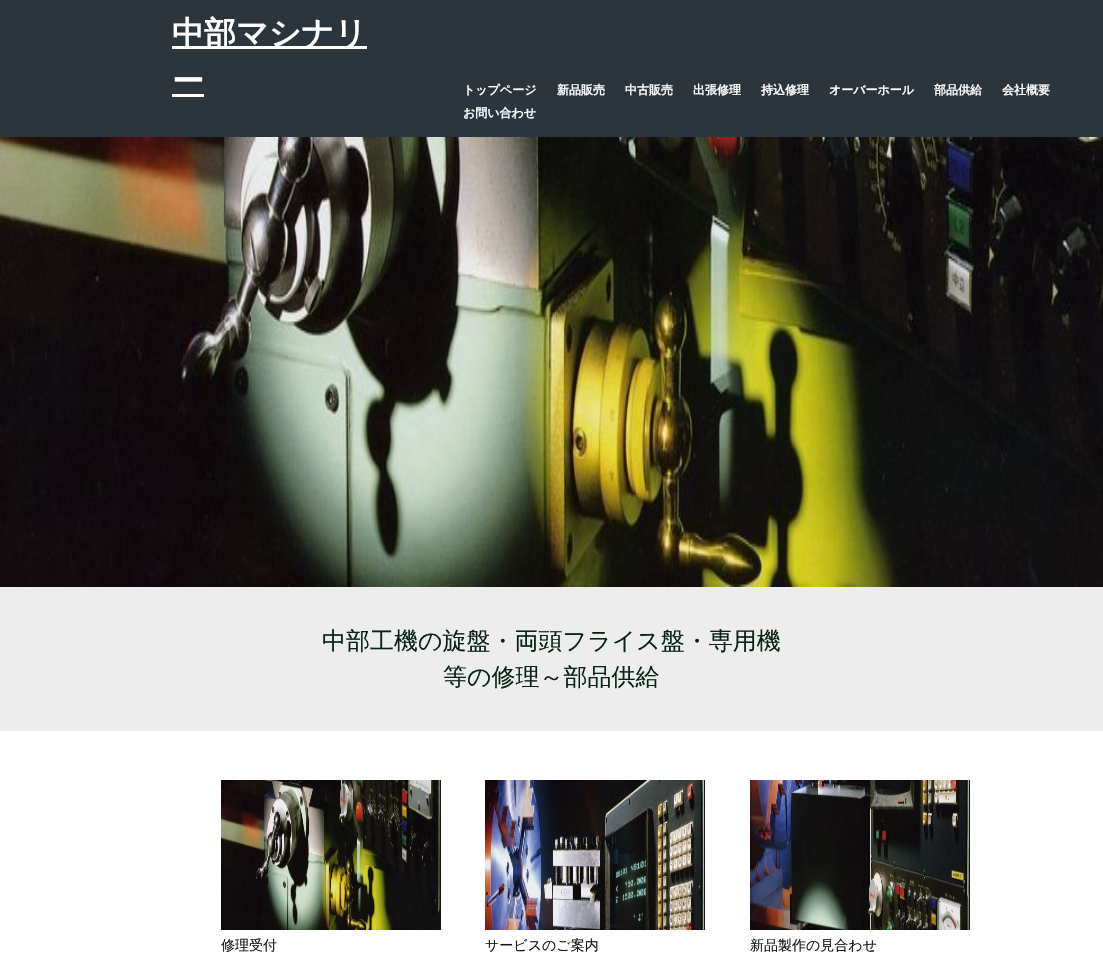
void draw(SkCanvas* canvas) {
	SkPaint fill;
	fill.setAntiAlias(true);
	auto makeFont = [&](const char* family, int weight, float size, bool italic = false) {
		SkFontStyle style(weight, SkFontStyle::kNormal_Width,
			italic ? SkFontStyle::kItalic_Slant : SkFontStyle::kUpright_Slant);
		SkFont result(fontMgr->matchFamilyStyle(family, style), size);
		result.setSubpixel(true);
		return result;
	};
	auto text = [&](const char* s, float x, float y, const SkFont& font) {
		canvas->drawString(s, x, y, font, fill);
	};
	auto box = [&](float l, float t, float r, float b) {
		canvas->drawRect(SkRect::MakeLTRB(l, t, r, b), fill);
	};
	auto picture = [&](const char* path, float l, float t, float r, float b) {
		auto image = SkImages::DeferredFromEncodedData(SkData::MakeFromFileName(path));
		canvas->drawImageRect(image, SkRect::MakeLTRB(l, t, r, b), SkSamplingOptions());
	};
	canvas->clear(0xFFFFFFFF);
	fill.setColor(0xFF2C353C);
	box(0, 0, 1103, 137);
	fill.setColor(0xFFFFFFFF);
	box(172, 46, 367, 49);
	box(172, 94, 204, 97);
	picture("image0.png", 0, 137, 1103, 587);
	fill.setColor(0xFFEDEDED);
	box(0, 587, 1103, 731);
	picture("image1.png", 221, 780, 441, 930);
	picture("image2.png", 485, 780, 705, 930);
	picture("image3.png", 750, 780, 970, 930);
	auto font1 = makeFont("WenQuanYi Zen Hei", 700, 32);
	fill.setColor(0xFFFFFFFF);
	text("中部マシナリ", 172, 44, font1);
	text("ー", 172, 92, font1);
	auto font2 = makeFont("WenQuanYi Zen Hei", 700, 12);
	text("トップページ", 463, 94, font2);
	text("新品販売", 557, 94, font2);
	text("中古販売", 625, 94, font2);
	text("出張修理", 693, 94, font2);
	text("持込修理", 761, 94, font2);
	text("オーバーホール", 829, 94, font2);
	text("部品供給", 934, 94, font2);
	text("会社概要", 1002, 94, font2);
	text("お問い合わせ", 463, 117, font2);
	auto font3 = makeFont("WenQuanYi Zen Hei", 500, 24);
	fill.setColor(0xFF082213);
	text("中部工機の旋盤・両頭フライス盤・専用機", 322, 649, font3);
	text("等の修理～部品供給", 443, 685, font3);
	auto font4 = makeFont("WenQuanYi Zen Hei", 500, 14);
	fill.setColor(0xFF151515);
	text("修理受付", 221, 950, font4);
	text("サービスのご案内", 485, 950, font4);
	text("新品製作の見合わせ", 750, 950, font4);
}
